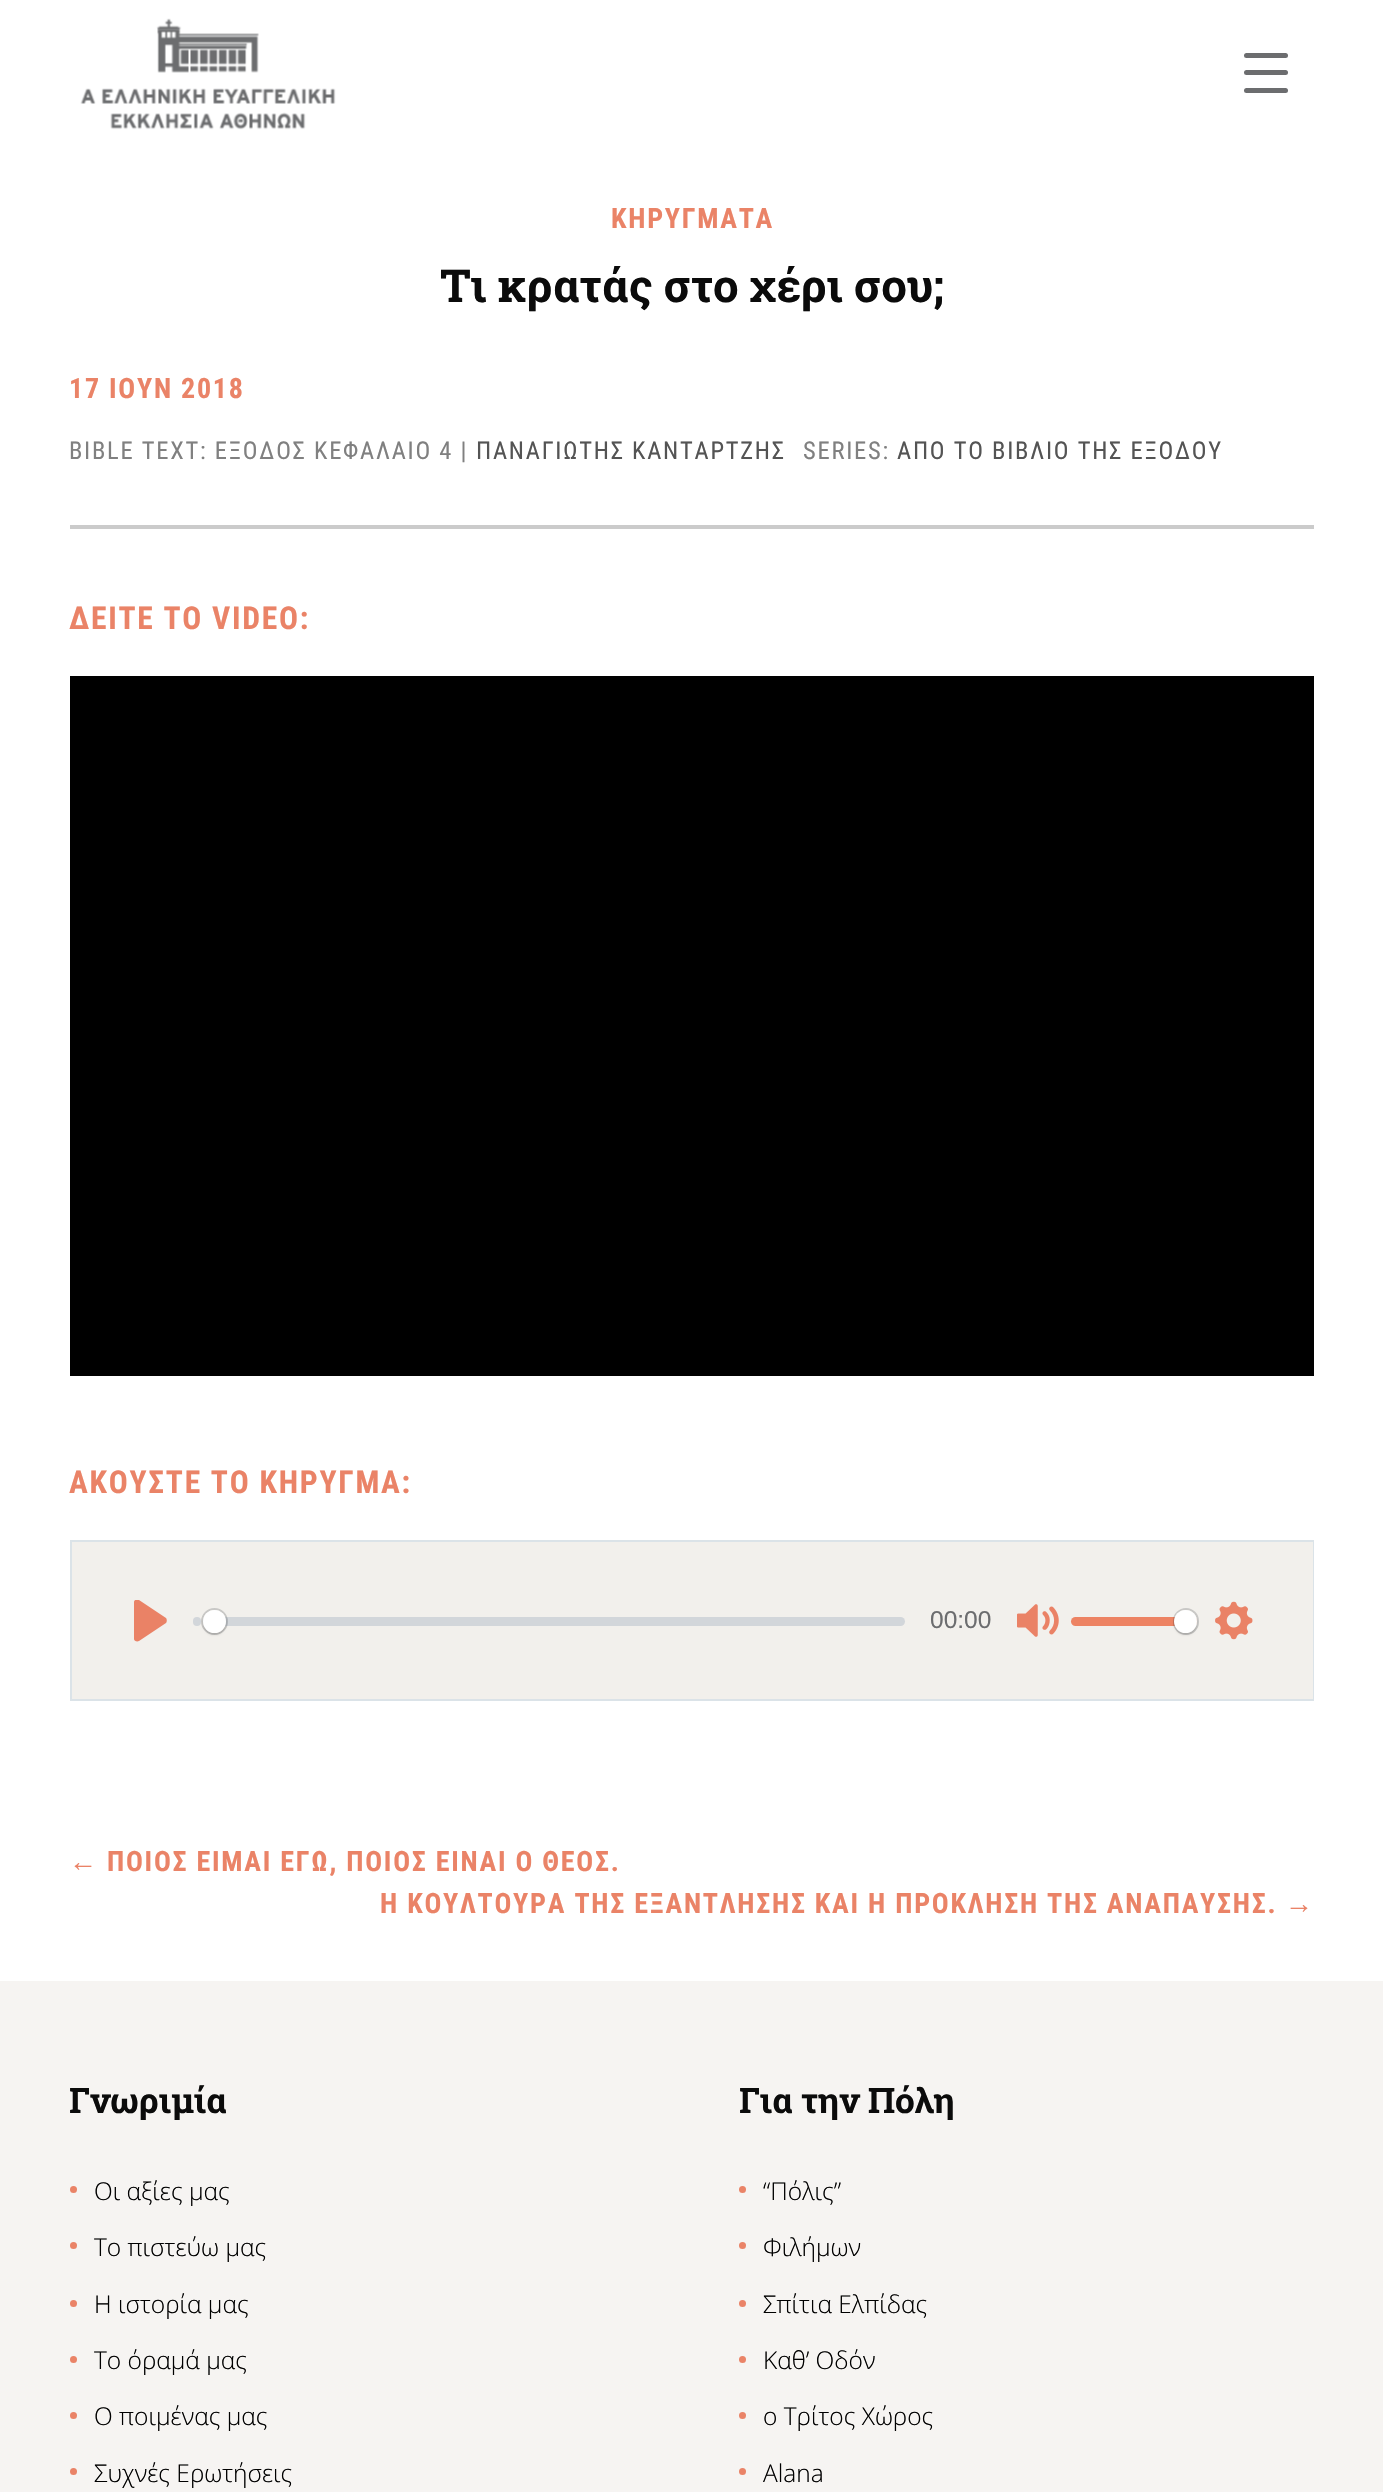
void draw(SkCanvas* canvas) {
	SkPaint fill;
	fill.setAntiAlias(true);
	auto makeFont = [&](const char* family, int weight, float size, bool italic = false) {
		SkFontStyle style(weight, SkFontStyle::kNormal_Width,
			italic ? SkFontStyle::kItalic_Slant : SkFontStyle::kUpright_Slant);
		SkFont result(fontMgr->matchFamilyStyle(family, style), size);
		result.setSubpixel(true);
		return result;
	};
	auto text = [&](const char* s, float x, float y, const SkFont& font) {
		canvas->drawString(s, x, y, font, fill);
	};
	auto spacedText = [&](const char* s, float x, float y, const SkFont& font, const SkPaint& ink, float letter, float word) {
		std::vector<SkGlyphID> glyphs(font.countText(s, strlen(s), SkTextEncoding::kUTF8));
		std::vector<float> xs(glyphs.size());
		font.textToGlyphs(s, strlen(s), SkTextEncoding::kUTF8, glyphs);
		font.getXPos(glyphs, xs, x);
		float extra = 0;
		for (size_t i = 0; i < glyphs.size(); i++) {
			xs[i] += extra;
			extra += letter + word * (glyphs[i] == font.unicharToGlyph(' '));
		}
		canvas->drawTextBlob(SkTextBlob::MakeFromPosHGlyphs(glyphs, xs, y, font), 0, 0, ink);
	};
	auto box = [&](float l, float t, float r, float b) {
		canvas->drawRect(SkRect::MakeLTRB(l, t, r, b), fill);
	};
	auto roundBox = [&](float l, float t, float r, float b, float radius) {
		canvas->drawRoundRect(SkRect::MakeLTRB(l, t, r, b), radius, radius, fill);
	};
	auto picture = [&](const char* path, float l, float t, float r, float b) {
		auto image = SkImages::DeferredFromEncodedData(SkData::MakeFromFileName(path));
		canvas->drawImageRect(image, SkRect::MakeLTRB(l, t, r, b), SkSamplingOptions());
	};
	canvas->clear(0xFFFFFFFF);
	fill.setColor(0xFF6C6D6F);
	roundBox(1244, 70, 1288, 75, 2.5f);
	roundBox(1244, 53, 1288, 58, 2.5f);
	roundBox(1244, 88, 1288, 93, 2.5f);
	picture("image0.png", 80, 18, 336, 130);
	fill.setColor(0xFFCBCBCB);
	box(70, 525, 1314, 529);
	fill.setColor(0xFF000000);
	box(70, 676, 1314, 1376);
	fill.setStyle(SkPaint::kStroke_Style);
	fill.setStrokeWidth(2);
	fill.setColor(0xFFDBE3E8);
	canvas->drawRect(SkRect::MakeLTRB(71, 1541, 1313, 1700), fill);
	fill.setStyle(SkPaint::kFill_Style);
	fill.setColor(0xFFF2F0EC);
	box(72, 1542, 1313, 1699);
	canvas->save();
	canvas->clipRect(SkRect::MakeLTRB(130, 1600, 172, 1642));
	fill.setColor(0xFFEA8266);
	canvas->drawPath(SkPathBuilder().moveTo(166, 1618).lineTo(139, 1600).cubicTo(137, 1599, 134, 1600, 134, 1602).lineTo(134, 1639).cubicTo(134, 1641, 137, 1642, 139, 1641).lineTo(166, 1623).cubicTo(167, 1622, 167, 1619, 166, 1618).close().detach(), fill);
	canvas->restore();
	fill.setColor(0xFFD2D6DA);
	roundBox(193, 1617, 201, 1626, 4);
	roundBox(203, 1617, 905, 1626, 4.5f);
	fill.setStyle(SkPaint::kStroke_Style);
	fill.setColor(0x3323292F);
	canvas->drawCircle(214.5f, 1621.5f, 12.5f, fill);
	fill.setStyle(SkPaint::kFill_Style);
	fill.setColor(0x26000000);
	fill.setMaskFilter(SkMaskFilter::MakeBlur(kNormal_SkBlurStyle, 1));
	canvas->drawRoundRect(SkRect::MakeLTRB(203, 1612, 226, 1635), 11.5f, 11.5f, fill);
	fill.setMaskFilter(nullptr);
	fill.setColor(0xFFFFFFFF);
	canvas->drawCircle(214.5f, 1621.5f, 11.5f, fill);
	picture("image1.png", 1017, 1604, 1059, 1637);
	fill.setColor(0xFFED8363);
	roundBox(1071, 1617, 1197, 1626, 4.5f);
	fill.setStyle(SkPaint::kStroke_Style);
	fill.setColor(0x3323292F);
	canvas->drawRoundRect(SkRect::MakeLTRB(1174, 1609, 1198, 1634), 12, 12, fill);
	fill.setStyle(SkPaint::kFill_Style);
	fill.setColor(0x26000000);
	fill.setMaskFilter(SkMaskFilter::MakeBlur(kNormal_SkBlurStyle, 1));
	canvas->drawRoundRect(SkRect::MakeLTRB(1174, 1612, 1197, 1635), 11.5f, 11.5f, fill);
	fill.setMaskFilter(nullptr);
	fill.setColor(0xFFFFFFFF);
	canvas->drawCircle(1185.5f, 1621.5f, 11.5f, fill);
	picture("image2.png", 1215, 1601, 1253, 1640);
	fill.setColor(0xFFF6F4F2);
	box(0, 1981, 1383, 2492);
	fill.setColor(0xFFEA8367);
	canvas->drawCircle(73.5f, 2189.5f, 3.5f, fill);
	canvas->drawCircle(73.5f, 2245.5f, 3.5f, fill);
	canvas->drawCircle(73.5f, 2303.5f, 3.5f, fill);
	canvas->drawCircle(73.5f, 2359.5f, 3.5f, fill);
	canvas->drawCircle(73.5f, 2415.5f, 3.5f, fill);
	canvas->drawCircle(73.5f, 2471.5f, 3.5f, fill);
	canvas->drawCircle(742.5f, 2189.5f, 3.5f, fill);
	canvas->drawCircle(742.5f, 2245.5f, 3.5f, fill);
	canvas->drawCircle(742.5f, 2303.5f, 3.5f, fill);
	canvas->drawCircle(742.5f, 2359.5f, 3.5f, fill);
	canvas->drawCircle(742.5f, 2415.5f, 3.5f, fill);
	canvas->drawCircle(742.5f, 2471.5f, 3.5f, fill);
	auto font1 = makeFont("Roboto Condensed", 700, 28);
	spacedText("ΚΗΡΥΓΜΑΤΑ", 611, 228, font1, fill, 1.75f, 0);
	auto font2 = makeFont("Roboto Slab", 700, 45.5f);
	fill.setColor(0xFF0B0B0B);
	text("Τι κρατάς στο χέρι σου;", 440, 302, font2);
	fill.setColor(0xFFEA8367);
	spacedText("17 ΙΟΥΝ 2018", 69, 398, font1, fill, 1.75f, 0);
	auto font3 = makeFont("Roboto Condensed", 400, 24.5f);
	fill.setColor(0xFF808080);
	spacedText("BIBLE TEXT: ΕΞΟΔΟΣ ΚΕΦΑΛΑΙΟ 4 |", 69, 459, font3, fill, 1.75f, 0);
	fill.setColor(0xFF545454);
	spacedText("ΠΑΝΑΓΙΩΤΗΣ ΚΑΝΤΑΡΤΖΗΣ", 476, 459, font3, fill, 1.75f, 0);
	fill.setColor(0xFF808080);
	spacedText("SERIES:", 803, 459, font3, fill, 1.75f, 0);
	fill.setColor(0xFF545454);
	spacedText("ΑΠΟ ΤΟ ΒΙΒΛΙΟ ΤΗΣ ΕΞΟΔΟΥ", 897, 459, font3, fill, 1.75f, 0);
	auto font4 = makeFont("Roboto Condensed", 700, 31.5f);
	fill.setColor(0xFFEA8367);
	spacedText("ΔΕΙΤΕ ΤΟ VIDEO:", 69, 629, font4, fill, 1.75f, 0);
	spacedText("ΑΚΟΥΣΤΕ ΤΟ ΚΗΡΥΓΜΑ:", 69, 1493, font4, fill, 1.75f, 0);
	auto font5 = makeFont("Liberation Sans", 400, 24.5f);
	fill.setColor(0xFF6C6D6F);
	text("00:00", 930, 1628, font5);
	auto font6 = makeFont("Liberation Sans", 700, 28);
	fill.setColor(0xFFEA8367);
	spacedText("←", 69, 1871, font6, fill, 1.75f, 0);
	spacedText("ΠΟΙΟΣ ΕΙΜΑΙ ΕΓΩ, ΠΟΙΟΣ ΕΙΝΑΙ Ο ΘΕΟΣ.", 107, 1871, font1, fill, 1.75f, 0);
	spacedText("Η ΚΟΥΛΤΟΥΡΑ ΤΗΣ ΕΞΑΝΤΛΗΣΗΣ ΚΑΙ Η ΠΡΟΚΛΗΣΗ ΤΗΣ ΑΝΑΠΑΥΣΗΣ.", 380, 1913, font1, fill, 1.75f, 0);
	spacedText("→", 1285, 1913, font6, fill, 1.75f, 0);
	auto font7 = makeFont("Roboto Slab", 700, 35);
	fill.setColor(0xFF0B0B0B);
	text("Γνωριμία", 69, 2113, font7);
	auto font8 = makeFont("Open Sans", 300, 24.5f);
	fill.setColor(0xFF000000);
	text("Οι αξίες μας", 94, 2200, font8);
	text("Το πιστεύω μας", 94, 2256, font8);
	text("Η ιστορία μας", 94, 2313, font8);
	text("Το όραμά μας", 94, 2369, font8);
	text("Ο ποιμένας μας", 94, 2425, font8);
	text("Συχνές Ερωτήσεις", 94, 2482, font8);
	fill.setColor(0xFF0B0B0B);
	text("Για την Πόλη", 739, 2113, font7);
	fill.setColor(0xFF000000);
	text("“Πόλις”", 763, 2200, font8);
	text("Φιλήμων", 763, 2256, font8);
	text("Σπίτια Ελπίδας", 763, 2313, font8);
	text("Καθ’ Οδόν", 763, 2369, font8);
	text("ο Τρίτος Χώρος", 763, 2425, font8);
	text("Alana", 763, 2482, font8);
}
